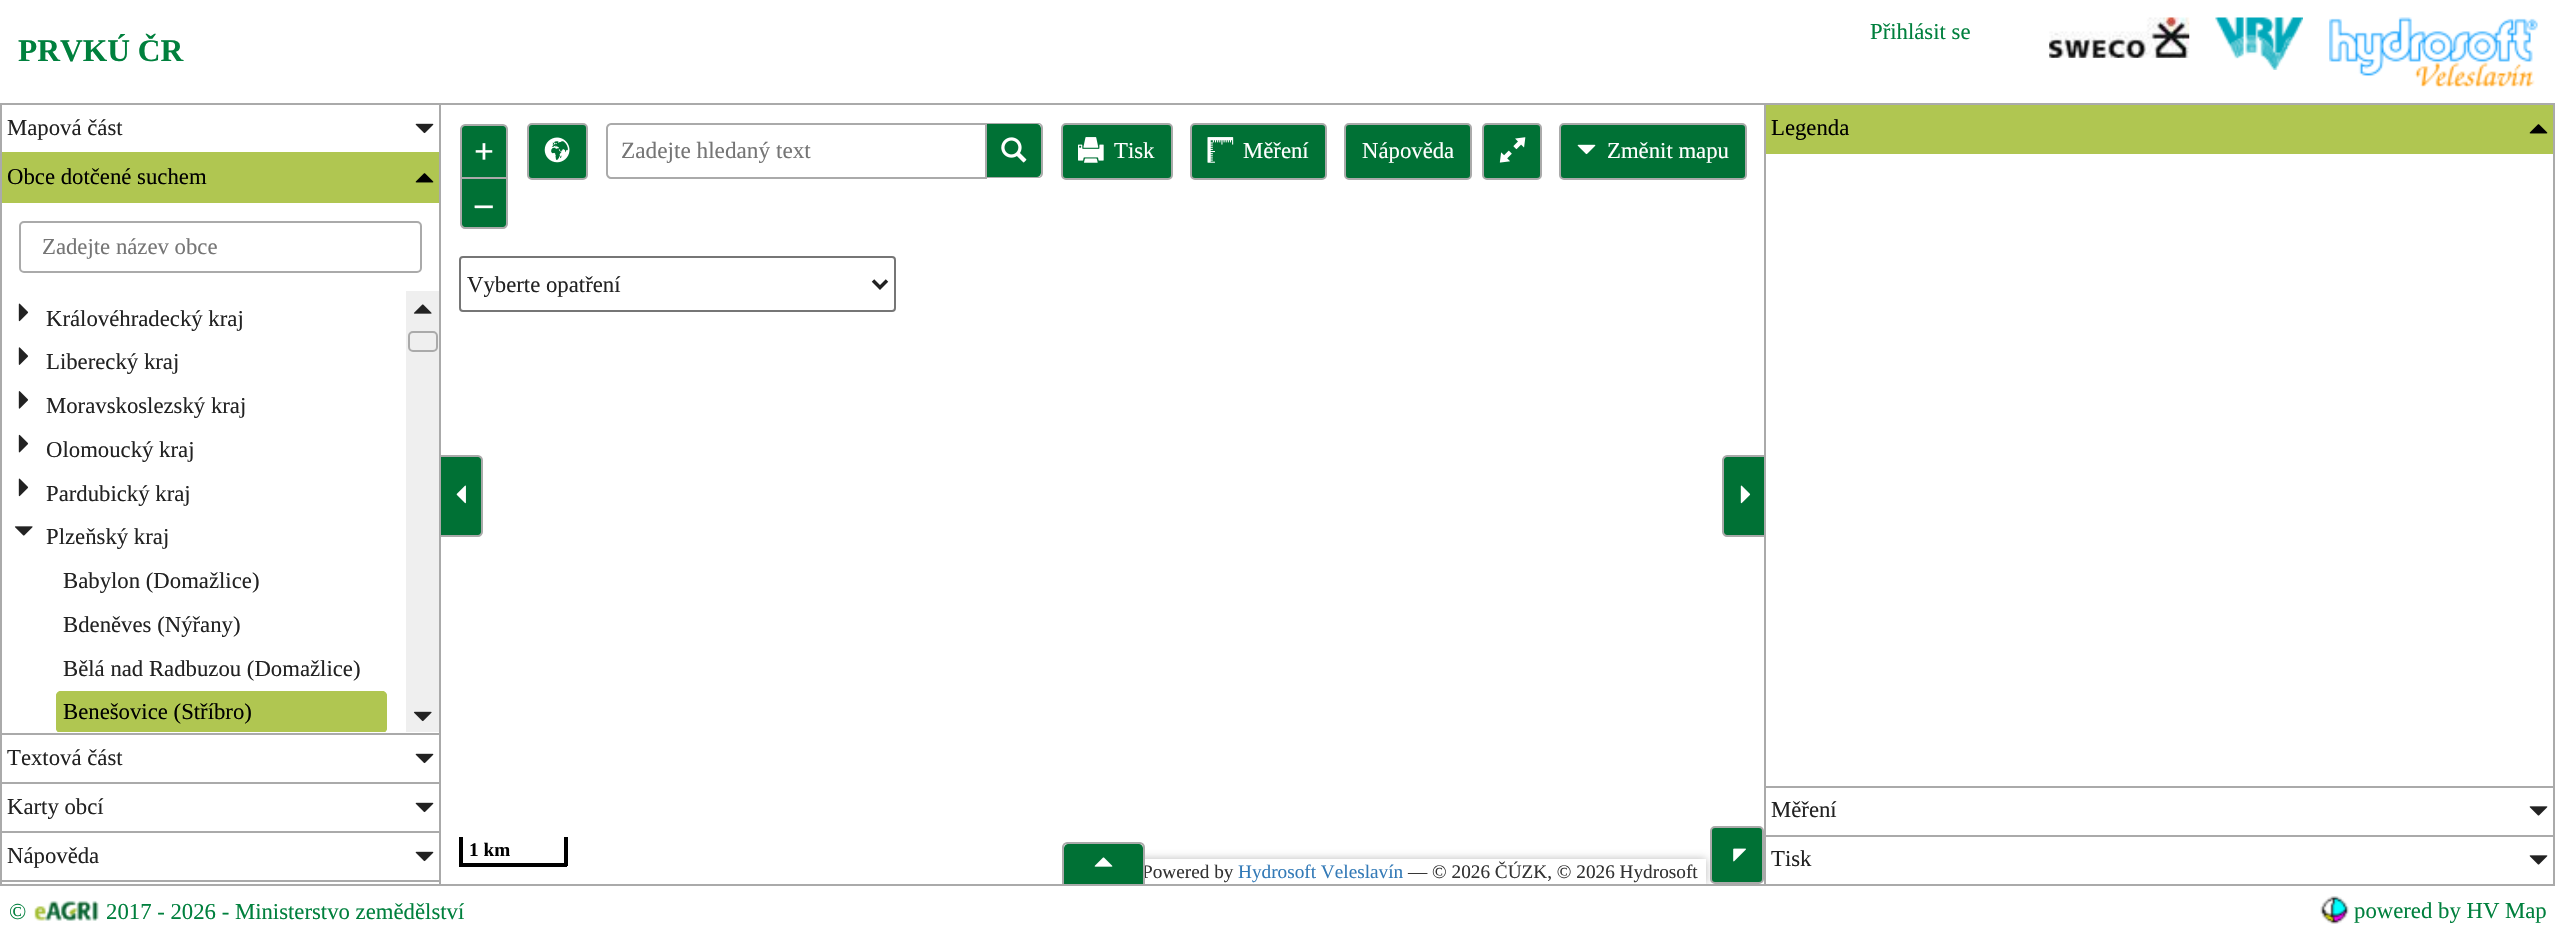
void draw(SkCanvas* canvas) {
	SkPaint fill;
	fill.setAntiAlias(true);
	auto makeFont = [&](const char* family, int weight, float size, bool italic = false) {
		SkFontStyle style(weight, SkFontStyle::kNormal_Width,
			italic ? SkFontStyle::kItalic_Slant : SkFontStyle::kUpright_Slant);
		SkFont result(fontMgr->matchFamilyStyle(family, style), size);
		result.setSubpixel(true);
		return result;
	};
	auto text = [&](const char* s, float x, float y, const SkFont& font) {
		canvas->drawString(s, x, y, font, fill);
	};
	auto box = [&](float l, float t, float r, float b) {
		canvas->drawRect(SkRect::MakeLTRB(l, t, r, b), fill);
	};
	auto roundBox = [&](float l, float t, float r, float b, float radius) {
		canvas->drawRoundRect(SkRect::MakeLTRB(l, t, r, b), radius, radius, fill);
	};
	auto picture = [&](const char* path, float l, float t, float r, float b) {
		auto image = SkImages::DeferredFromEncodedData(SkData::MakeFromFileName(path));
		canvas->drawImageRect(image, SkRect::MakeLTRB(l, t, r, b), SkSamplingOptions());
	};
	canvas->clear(0xFFFFFFFF);
	picture("image0.png", 2049, 17, 2190, 58);
	picture("image1.png", 2215, 17, 2303, 70);
	picture("image2.png", 2329, 17, 2538, 88);
	fill.setStyle(SkPaint::kStroke_Style);
	fill.setStrokeWidth(2);
	fill.setColor(0xFFAAAAAA);
	canvas->drawRect(SkRect::MakeLTRB(1, 104, 2554, 885), fill);
	picture("image3.png", 415, 123, 434, 134);
	fill.setStyle(SkPaint::kFill_Style);
	fill.setColor(0xFFB0C651);
	box(2, 152, 439, 203);
	picture("image4.png", 415, 173, 434, 183);
	fill.setColor(0xFFAAAAAA);
	box(2, 733, 439, 735);
	fill.setStyle(SkPaint::kStroke_Style);
	canvas->drawRoundRect(SkRect::MakeLTRB(20, 222, 421, 272), 4, 4, fill);
	picture("image5.png", 18, 303, 29, 322);
	picture("image6.png", 18, 347, 29, 365);
	picture("image7.png", 18, 391, 29, 409);
	picture("image8.png", 18, 434, 29, 453);
	picture("image5.png", 18, 478, 29, 497);
	picture("image9.png", 14, 526, 33, 536);
	canvas->save();
	canvas->clipRect(SkRect::MakeLTRB(2, 291, 439, 732));
	fill.setStyle(SkPaint::kFill_Style);
	fill.setColor(0xFFB0C651);
	roundBox(56, 691, 387, 733, 5);
	canvas->restore();
	canvas->save();
	canvas->clipRect(SkRect::MakeLTRB(11, 558, 387, 732));
	fill.setStyle(SkPaint::kStroke_Style);
	canvas->drawRoundRect(SkRect::MakeLTRB(57, 692, 386, 732), 4, 4, fill);
	canvas->restore();
	fill.setStyle(SkPaint::kFill_Style);
	fill.setColor(0xFFEFEFEF);
	box(406, 291, 439, 732);
	picture("image10.png", 413, 304, 432, 314);
	fill.setStyle(SkPaint::kStroke_Style);
	fill.setColor(0xFFAAAAAA);
	canvas->drawRoundRect(SkRect::MakeLTRB(409, 332, 437, 351), 4, 4, fill);
	picture("image11.png", 413, 711, 432, 722);
	fill.setStyle(SkPaint::kFill_Style);
	box(2, 782, 439, 784);
	picture("image3.png", 415, 753, 434, 764);
	box(2, 831, 439, 833);
	picture("image3.png", 415, 802, 434, 813);
	box(2, 880, 439, 882);
	picture("image3.png", 415, 851, 434, 862);
	box(439, 105, 441, 884);
	fill.setColor(0xFF007135);
	canvas->drawPath(SkPathBuilder().moveTo(440, 456).lineTo(478, 456).cubicTo(480, 456, 482, 458, 482, 460).lineTo(482, 532).cubicTo(482, 534, 480, 536, 478, 536).lineTo(440, 536).close().detach(), fill);
	fill.setStyle(SkPaint::kStroke_Style);
	fill.setColor(0xFFAAAAAA);
	canvas->drawPath(SkPathBuilder().moveTo(440, 456).lineTo(478, 456).cubicTo(480, 456, 482, 458, 482, 460).lineTo(482, 532).cubicTo(482, 534, 480, 536, 478, 536).lineTo(440, 536).close().detach(), fill);
	picture("image12.png", 456, 485, 466, 504);
	fill.setStyle(SkPaint::kFill_Style);
	fill.setColor(0xFF007135);
	canvas->drawPath(SkPathBuilder().moveTo(465, 125).lineTo(503, 125).cubicTo(505, 125, 507, 127, 507, 129).lineTo(507, 178).lineTo(461, 178).lineTo(461, 129).cubicTo(461, 127, 463, 125, 465, 125).close().detach(), fill);
	fill.setStyle(SkPaint::kStroke_Style);
	fill.setColor(0xFFAAAAAA);
	canvas->drawPath(SkPathBuilder().moveTo(465, 125).lineTo(503, 125).cubicTo(505, 125, 507, 127, 507, 129).lineTo(507, 178).lineTo(461, 178).lineTo(461, 129).cubicTo(461, 127, 463, 125, 465, 125).close().detach(), fill);
	fill.setStyle(SkPaint::kFill_Style);
	fill.setColor(0xFF007135);
	canvas->drawPath(SkPathBuilder().moveTo(461, 178).lineTo(507, 178).lineTo(507, 224).cubicTo(507, 226, 505, 228, 503, 228).lineTo(465, 228).cubicTo(463, 228, 461, 226, 461, 224).close().detach(), fill);
	fill.setStyle(SkPaint::kStroke_Style);
	fill.setColor(0xFFAAAAAA);
	canvas->drawPath(SkPathBuilder().moveTo(461, 178).lineTo(507, 178).lineTo(507, 224).cubicTo(507, 226, 505, 228, 503, 228).lineTo(465, 228).cubicTo(463, 228, 461, 226, 461, 224).close().detach(), fill);
	fill.setStyle(SkPaint::kFill_Style);
	fill.setColor(0xFF007135);
	canvas->drawRoundRect(SkRect::MakeLTRB(528, 124, 587, 179), 4, 4, fill);
	fill.setStyle(SkPaint::kStroke_Style);
	fill.setColor(0xFFAAAAAA);
	canvas->drawRoundRect(SkRect::MakeLTRB(528, 124, 587, 179), 4, 4, fill);
	picture("image13.png", 544, 137, 570, 163);
	canvas->drawPath(SkPathBuilder().moveTo(611, 124).lineTo(986, 124).lineTo(986, 178).lineTo(611, 178).cubicTo(609, 178, 607, 176, 607, 174).lineTo(607, 128).cubicTo(607, 126, 609, 124, 611, 124).close().detach(), fill);
	fill.setStyle(SkPaint::kFill_Style);
	fill.setColor(0xFF007135);
	canvas->drawPath(SkPathBuilder().moveTo(987, 124).lineTo(1037, 124).cubicTo(1039, 124, 1041, 126, 1041, 128).lineTo(1041, 173).cubicTo(1041, 175, 1039, 177, 1037, 177).lineTo(987, 177).close().detach(), fill);
	fill.setColor(0xFFAAAAAA);
	canvas->drawPath(SkPathBuilder().moveTo(987, 124).lineTo(1038, 124).cubicTo(1040, 124, 1041, 126, 1041, 128).lineTo(1041, 173).cubicTo(1041, 175, 1040, 177, 1038, 177).lineTo(987, 177).lineTo(987, 178).lineTo(1038, 178).cubicTo(1041, 178, 1043, 176, 1043, 173).lineTo(1043, 128).cubicTo(1043, 125, 1041, 123, 1038, 123).lineTo(987, 123).close().detach(), fill);
	picture("image14.png", 1001, 137, 1027, 163);
	fill.setColor(0xFF007135);
	canvas->drawRoundRect(SkRect::MakeLTRB(1062, 124, 1172, 179), 4, 4, fill);
	fill.setStyle(SkPaint::kStroke_Style);
	fill.setColor(0xFFAAAAAA);
	canvas->drawRoundRect(SkRect::MakeLTRB(1062, 124, 1172, 179), 4, 4, fill);
	picture("image15.png", 1078, 137, 1104, 163);
	fill.setStyle(SkPaint::kFill_Style);
	fill.setColor(0xFF007135);
	canvas->drawRoundRect(SkRect::MakeLTRB(1191, 124, 1326, 179), 4, 4, fill);
	fill.setStyle(SkPaint::kStroke_Style);
	fill.setColor(0xFFAAAAAA);
	canvas->drawRoundRect(SkRect::MakeLTRB(1191, 124, 1326, 179), 4, 4, fill);
	picture("image16.png", 1207, 137, 1234, 163);
	fill.setStyle(SkPaint::kFill_Style);
	fill.setColor(0xFF007135);
	canvas->drawRoundRect(SkRect::MakeLTRB(1345, 124, 1471, 179), 4, 4, fill);
	fill.setStyle(SkPaint::kStroke_Style);
	fill.setColor(0xFFAAAAAA);
	canvas->drawRoundRect(SkRect::MakeLTRB(1345, 124, 1471, 179), 4, 4, fill);
	fill.setColor(0xFF767676);
	canvas->drawRoundRect(SkRect::MakeLTRB(460, 257, 895, 311), 3, 3, fill);
	fill.setStrokeWidth(3.5f);
	fill.setColor(0xFF222222);
	canvas->drawPath(SkPathBuilder().moveTo(873, 280.5f).lineTo(880, 287.5f).lineTo(887, 280.5f).detach(), fill);
	fill.setStyle(SkPaint::kFill_Style);
	fill.setColor(0xFF007135);
	canvas->drawRoundRect(SkRect::MakeLTRB(1483, 124, 1541, 179), 4, 4, fill);
	fill.setStyle(SkPaint::kStroke_Style);
	fill.setStrokeWidth(2);
	fill.setColor(0xFFAAAAAA);
	canvas->drawRoundRect(SkRect::MakeLTRB(1483, 124, 1541, 179), 4, 4, fill);
	picture("image17.png", 1499, 137, 1526, 163);
	fill.setStyle(SkPaint::kFill_Style);
	fill.setColor(0xFF007135);
	canvas->drawRoundRect(SkRect::MakeLTRB(1560, 124, 1746, 179), 4, 4, fill);
	fill.setStyle(SkPaint::kStroke_Style);
	fill.setColor(0xFFAAAAAA);
	canvas->drawRoundRect(SkRect::MakeLTRB(1560, 124, 1746, 179), 4, 4, fill);
	picture("image18.png", 1577, 144, 1596, 155);
	fill.setStyle(SkPaint::kFill_Style);
	fill.setColor(0xFF000000);
	box(564, 837, 568, 866);
	box(459, 863, 567, 867);
	box(459, 837, 463, 866);
	canvas->save();
	canvas->clipRect(SkRect::MakeLTRB(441, 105, 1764, 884));
	canvas->clipPath(SkPathBuilder(SkPathFillType::kEvenOdd).moveTo(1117, 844).lineTo(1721, 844).lineTo(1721, 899).lineTo(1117, 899).close().moveTo(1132, 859).lineTo(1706, 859).lineTo(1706, 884).lineTo(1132, 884).close().detach(), true);
	fill.setColor(0xFFBBBBBB);
	fill.setMaskFilter(SkMaskFilter::MakeBlur(kNormal_SkBlurStyle, 4.5f));
	canvas->drawRect(SkRect::MakeLTRB(1132, 859, 1706, 884), fill);
	fill.setMaskFilter(nullptr);
	canvas->restore();
	fill.setColor(0xB3FFFFFF);
	box(1145, 859, 1706, 884);
	fill.setColor(0xFF007135);
	canvas->drawRoundRect(SkRect::MakeLTRB(1711, 827, 1763, 883), 4, 4, fill);
	fill.setStyle(SkPaint::kStroke_Style);
	fill.setColor(0xFFAAAAAA);
	canvas->drawRoundRect(SkRect::MakeLTRB(1711, 827, 1763, 883), 4, 4, fill);
	picture("image19.png", 1733, 848, 1746, 862);
	fill.setStyle(SkPaint::kFill_Style);
	box(1764, 105, 1766, 884);
	fill.setColor(0xFF007135);
	canvas->drawPath(SkPathBuilder().moveTo(1727, 456).lineTo(1765, 456).lineTo(1765, 536).lineTo(1727, 536).cubicTo(1725, 536, 1723, 534, 1723, 532).lineTo(1723, 460).cubicTo(1723, 458, 1725, 456, 1727, 456).close().detach(), fill);
	fill.setStyle(SkPaint::kStroke_Style);
	fill.setColor(0xFFAAAAAA);
	canvas->drawPath(SkPathBuilder().moveTo(1727, 456).lineTo(1765, 456).lineTo(1765, 536).lineTo(1727, 536).cubicTo(1725, 536, 1723, 534, 1723, 532).lineTo(1723, 460).cubicTo(1723, 458, 1725, 456, 1727, 456).close().detach(), fill);
	picture("image21.png", 1740, 485, 1751, 504);
	fill.setStyle(SkPaint::kFill_Style);
	fill.setColor(0xFFB0C651);
	box(1766, 105, 2553, 154);
	picture("image4.png", 2529, 124, 2548, 134);
	fill.setColor(0xFFAAAAAA);
	box(1766, 786, 2553, 788);
	box(1766, 835, 2553, 837);
	picture("image22.png", 2529, 806, 2548, 816);
	picture("image22.png", 2529, 855, 2548, 865);
	picture("image23.png", 34, 900, 99, 921);
	picture("image24.png", 2320, 896, 2349, 924);
	auto font1 = makeFont("Liberation Serif", 700, 31.5f);
	fill.setColor(0xFF00803D);
	text("PRVKÚ ČR", 18, 61, font1);
	auto font2 = makeFont("Liberation Serif", 400, 22.75f);
	text("Přihlásit se", 1870, 39, font2);
	fill.setColor(0xFF222222);
	text("Mapová část", 7, 135, font2);
	fill.setColor(0xFF000000);
	text("Obce dotčené suchem", 7, 184, font2);
	fill.setColor(0xFF757575);
	text("Zadejte název obce", 42, 254, font2);
	fill.setColor(0xFF222222);
	text("Královéhradecký kraj", 46, 326, font2);
	text("Liberecký kraj", 46, 369, font2);
	text("Moravskoslezský kraj", 46, 413, font2);
	text("Olomoucký kraj", 46, 457, font2);
	text("Pardubický kraj", 46, 501, font2);
	text("Plzeňský kraj", 46, 544, font2);
	text("Babylon (Domažlice)", 63, 588, font2);
	text("Bdeněves (Nýřany)", 63, 632, font2);
	text("Bělá nad Radbuzou (Domažlice)", 63, 676, font2);
	fill.setColor(0xFF000000);
	text("Benešovice (Stříbro)", 63, 719, font2);
	fill.setColor(0xFF222222);
	text("Textová část", 7, 765, font2);
	text("Karty obcí", 7, 814, font2);
	text("Nápověda", 7, 863, font2);
	auto font3 = makeFont("Liberation Serif", 700, 35);
	fill.setColor(0xFFFFFFFF);
	text("+", 474, 163, font3);
	text("–", 475, 215, font3);
	auto font4 = makeFont("Liberation Serif", 400, 23.25f);
	fill.setColor(0xFF757575);
	text("Zadejte hledaný text", 621, 158, font4);
	fill.setColor(0xFFFFFFFF);
	text("Tisk", 1114, 158, font2);
	text("Měření", 1243, 158, font2);
	text("Nápověda", 1362, 158, font2);
	fill.setColor(0xFF222222);
	text("Vyberte opatření", 467, 292, font2);
	fill.setColor(0xFFFFFFFF);
	text("Změnit mapu", 1607, 158, font2);
	auto font5 = makeFont("Liberation Serif", 700, 19.25f);
	fill.setColor(0xFF000000);
	text("1 km", 469, 856, font5);
	auto font6 = makeFont("Liberation Serif", 400, 19.25f);
	fill.setColor(0xFF333333);
	text("Powered by", 1142, 878, font6);
	fill.setColor(0xFF337AB7);
	text("Hydrosoft Veleslavín", 1238, 878, font6);
	fill.setColor(0xFF333333);
	text("— © 2026 ČÚZK, © 2026 Hydrosoft", 1408, 878, font6);
	fill.setColor(0xFF007135);
	canvas->drawPath(SkPathBuilder().moveTo(1068, 844).lineTo(1139, 844).cubicTo(1141, 844, 1143, 846, 1143, 848).lineTo(1143, 884).lineTo(1064, 884).lineTo(1064, 848).cubicTo(1064, 846, 1066, 844, 1068, 844).close().detach(), fill);
	canvas->save();
	canvas->clipRect(SkRect::MakeLTRB(441, 105, 1764, 884));
	fill.setStyle(SkPaint::kStroke_Style);
	fill.setColor(0xFFAAAAAA);
	canvas->drawPath(SkPathBuilder().moveTo(1067, 843).lineTo(1140, 843).cubicTo(1142, 843, 1144, 845, 1144, 847).lineTo(1144, 885).lineTo(1063, 885).lineTo(1063, 847).cubicTo(1063, 845, 1065, 843, 1067, 843).close().detach(), fill);
	canvas->restore();
	picture("image20.png", 1094, 857, 1113, 867);
	fill.setStyle(SkPaint::kFill_Style);
	fill.setColor(0xFF000000);
	text("Legenda", 1771, 135, font2);
	fill.setColor(0xFF222222);
	text("Měření", 1771, 817, font2);
	text("Tisk", 1771, 866, font2);
	fill.setColor(0xFF00803D);
	text("©", 9, 919, font2);
	text("2017 - 2026 - Ministerstvo zemědělství", 106, 919, font2);
	text("powered by HV Map", 2354, 918, font2);
}
